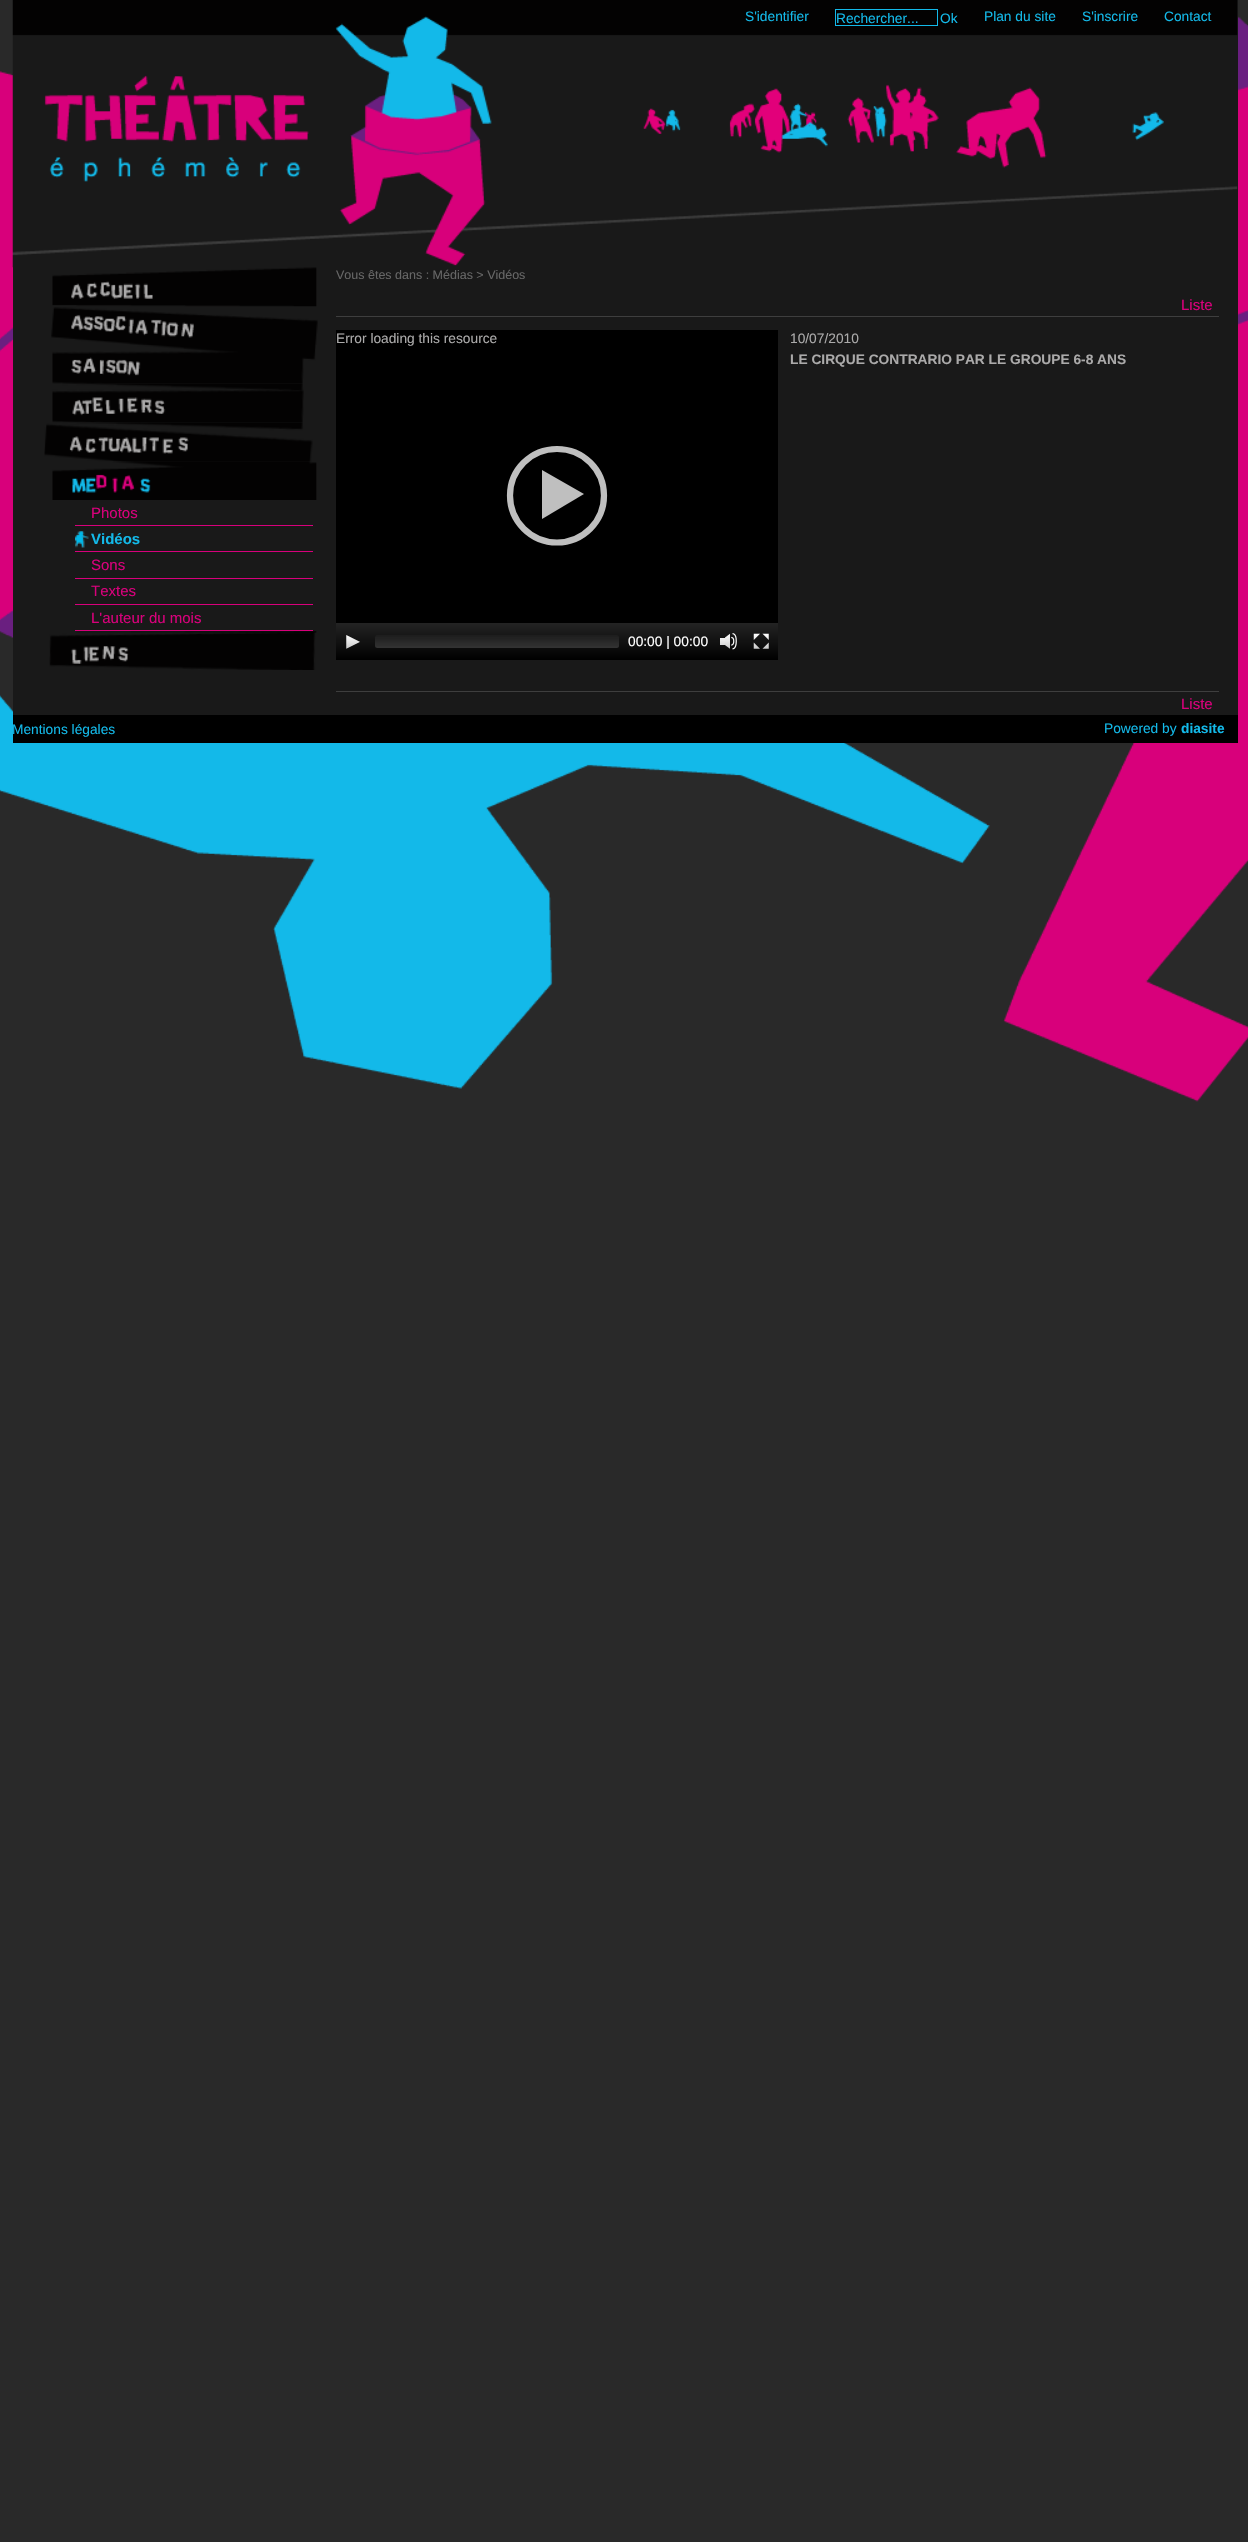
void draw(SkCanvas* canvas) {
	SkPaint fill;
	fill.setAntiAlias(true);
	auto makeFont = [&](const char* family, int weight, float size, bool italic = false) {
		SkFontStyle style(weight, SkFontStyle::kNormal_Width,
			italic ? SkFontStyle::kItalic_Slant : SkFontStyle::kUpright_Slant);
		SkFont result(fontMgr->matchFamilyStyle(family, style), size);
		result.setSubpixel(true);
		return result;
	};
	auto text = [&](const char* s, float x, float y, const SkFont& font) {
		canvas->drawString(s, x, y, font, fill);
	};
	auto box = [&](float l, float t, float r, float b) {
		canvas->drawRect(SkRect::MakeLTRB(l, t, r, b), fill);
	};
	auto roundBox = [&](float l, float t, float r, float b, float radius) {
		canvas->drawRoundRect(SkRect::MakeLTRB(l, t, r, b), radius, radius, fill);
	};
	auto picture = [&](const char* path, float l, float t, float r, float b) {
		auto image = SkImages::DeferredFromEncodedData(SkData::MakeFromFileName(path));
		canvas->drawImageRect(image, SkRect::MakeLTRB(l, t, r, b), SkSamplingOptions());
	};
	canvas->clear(0xFF292929);
	picture("image0.png", 0, 0, 1248, 1102);
	fill.setColor(0xFF191919);
	box(13, 0, 1238, 715);
	picture("image1.png", 12, 0, 510, 268);
	picture("image2.png", 510, 0, 1238, 229);
	fill.setStyle(SkPaint::kStroke_Style);
	fill.setStrokeWidth(1);
	fill.setColor(0xFF13B9E9);
	canvas->drawRect(SkRect::MakeLTRB(835.5f, 9.5f, 937.5f, 25.5f), fill);
	picture("image3.png", 52, 267, 317, 307);
	picture("image4.png", 51, 307, 318, 345);
	picture("image5.png", 52, 345, 316, 384);
	picture("image6.png", 52, 384, 304, 423);
	picture("image7.png", 44, 422, 313, 462);
	picture("image8.png", 52, 461, 317, 500);
	fill.setStyle(SkPaint::kFill_Style);
	fill.setColor(0xFFD8007B);
	box(75, 525, 313, 526);
	box(75, 551, 313, 552);
	picture("image9.png", 75, 531, 89, 548);
	box(75, 578, 313, 579);
	box(75, 604, 313, 605);
	box(75, 630, 313, 631);
	picture("image10.png", 49, 631, 317, 670);
	fill.setColor(0xFF3E3E3E);
	box(336, 316, 1219, 317);
	fill.setColor(0xFF000000);
	box(336, 330, 778, 623);
	fill.setColor(0xFFBFBFBF);
	canvas->drawPath(SkPathBuilder().moveTo(584, 494).lineTo(542, 519).lineTo(542, 470).close().detach(), fill);
	fill.setStyle(SkPaint::kStroke_Style);
	fill.setStrokeWidth(6.2f);
	canvas->drawPath(SkPathBuilder().moveTo(510, 495.5f).cubicTo(510, 469.5f, 531, 449, 557, 449).cubicTo(583, 449, 604, 469.5f, 604, 495.5f).cubicTo(604, 521.5f, 583, 542.5f, 557, 542.5f).cubicTo(531, 542.5f, 510, 521.5f, 510, 495.5f).close().detach(), fill);
	fill.setStyle(SkPaint::kFill_Style);
	{
		const SkColor colors[] = {0xFF232323, 0xFF000000};
		const float stops[] = {0, 1};
		const SkPoint ends[] = {{557, 623}, {557, 660}};
		fill.setShader(SkGradientShader::MakeLinear(ends, colors, stops, 2, SkTileMode::kClamp));
		fill.setAlpha(255);
	}
	box(336, 623, 778, 660);
	picture("image11.png", 346, 635, 360, 649);
	{
		const SkColor colors[] = {0xCC1E1E1E, 0xCC3C3C3C};
		const float stops[] = {0, 1};
		const SkPoint ends[] = {{497, 635}, {497, 648}};
		fill.setShader(SkGradientShader::MakeLinear(ends, colors, stops, 2, SkTileMode::kClamp));
		fill.setAlpha(255);
	}
	roundBox(375, 635, 619, 648, 2.5f);
	picture("image12.png", 720, 633, 737, 650);
	picture("image13.png", 753, 633, 769, 649);
	fill.setShader(nullptr);
	fill.setColor(0xFF3E3E3E);
	box(336, 691, 1219, 692);
	fill.setColor(0xFF000000);
	box(13, 715, 1238, 743);
	auto font1 = makeFont("Liberation Sans", 400, 13.75f);
	fill.setColor(0xFF13B9E9);
	text("S'identifier", 745, 21, font1);
	text("Rechercher...", 836, 23, font1);
	text("Ok", 940, 23, font1);
	text("Plan du site", 984, 21, font1);
	text("S'inscrire", 1082, 21, font1);
	text("Contact", 1164, 21, font1);
	auto font2 = makeFont("Liberation Sans", 400, 15);
	fill.setColor(0xFFD8007B);
	text("Photos", 91, 518, font2);
	auto font3 = makeFont("Liberation Sans", 700, 15);
	fill.setColor(0xFF13B9E9);
	text("Vidéos", 91, 544, font3);
	fill.setColor(0xFFD8007B);
	text("Sons", 91, 570, font2);
	text("Textes", 91, 596, font2);
	text("L'auteur du mois", 91, 623, font2);
	auto font4 = makeFont("Liberation Sans", 400, 12.5f);
	fill.setColor(0xFF666666);
	text("Vous êtes dans : Médias > Vidéos", 336, 279, font4);
	fill.setColor(0xFFD8007B);
	text("Liste", 1181, 310, font2);
	fill.setColor(0xFFABAAAA);
	text("Error loading this resource", 336, 343, font1);
	fill.setColor(0xFFFFFFFF);
	text("00:00 | 00:00", 628, 646, font1);
	fill.setColor(0xFFABAAAA);
	text("10/07/2010", 790, 343, font1);
	auto font5 = makeFont("Liberation Sans", 700, 13.75f);
	text("LE CIRQUE CONTRARIO PAR LE GROUPE 6-8 ANS", 790, 364, font5);
	fill.setColor(0xFFD8007B);
	text("Liste", 1181, 709, font2);
	fill.setColor(0xFF13B9E9);
	text("Mentions légales", 12, 734, font1);
	text("Powered by", 1104, 733, font1);
	text("diasite", 1181, 733, font5);
}
